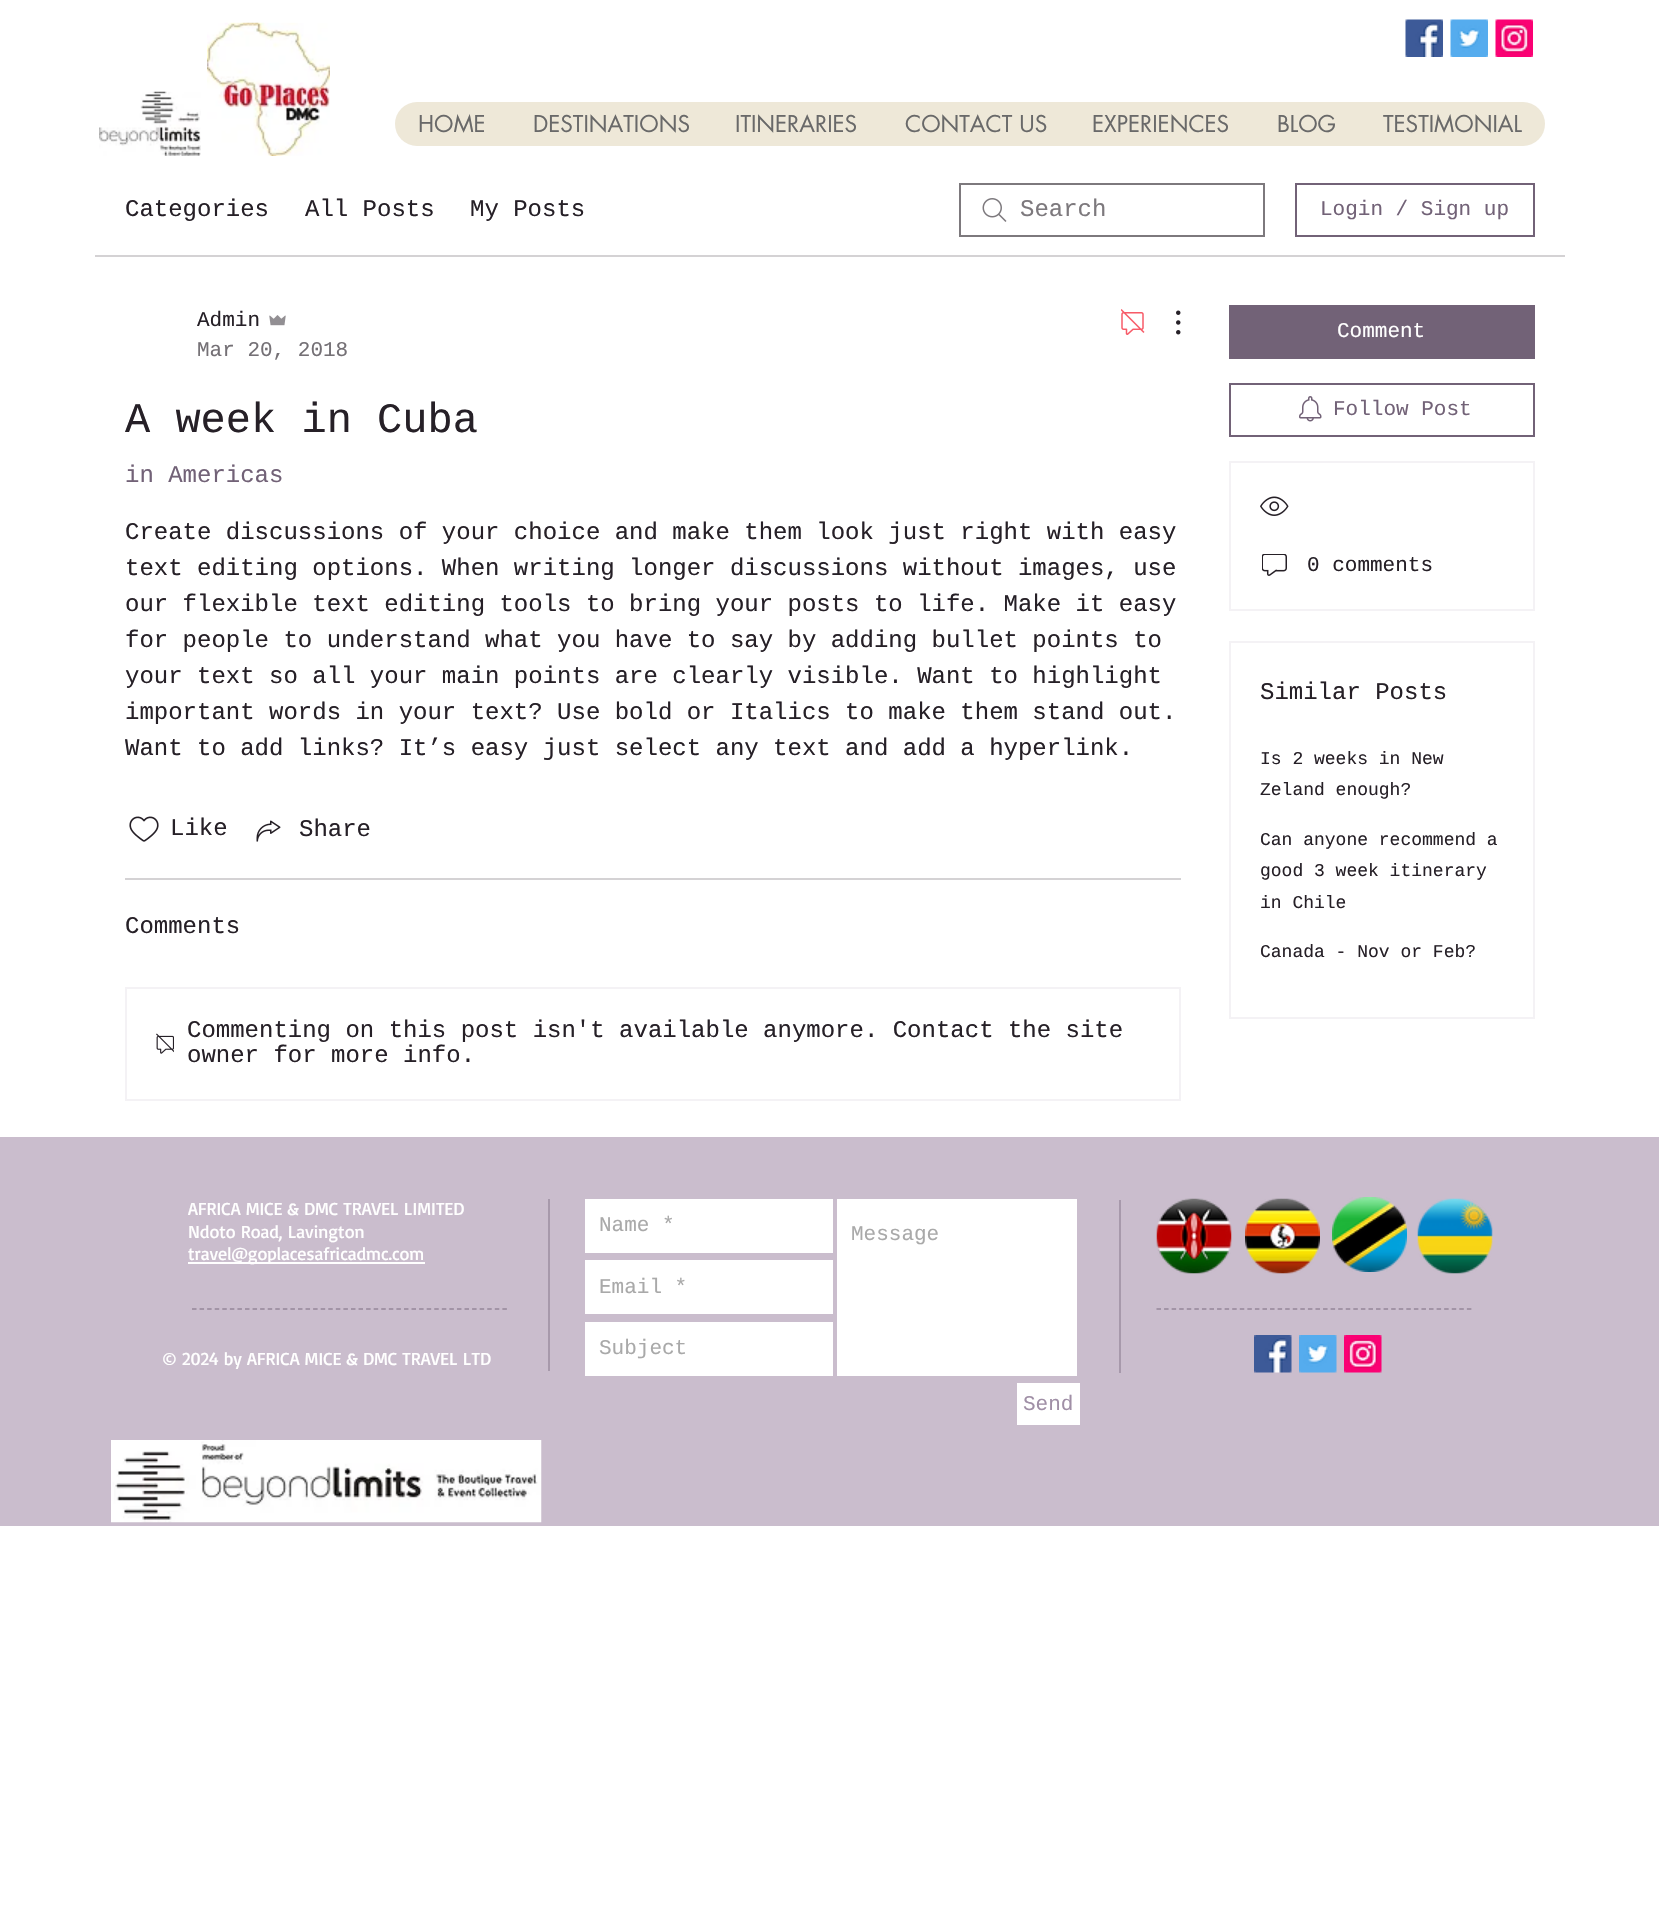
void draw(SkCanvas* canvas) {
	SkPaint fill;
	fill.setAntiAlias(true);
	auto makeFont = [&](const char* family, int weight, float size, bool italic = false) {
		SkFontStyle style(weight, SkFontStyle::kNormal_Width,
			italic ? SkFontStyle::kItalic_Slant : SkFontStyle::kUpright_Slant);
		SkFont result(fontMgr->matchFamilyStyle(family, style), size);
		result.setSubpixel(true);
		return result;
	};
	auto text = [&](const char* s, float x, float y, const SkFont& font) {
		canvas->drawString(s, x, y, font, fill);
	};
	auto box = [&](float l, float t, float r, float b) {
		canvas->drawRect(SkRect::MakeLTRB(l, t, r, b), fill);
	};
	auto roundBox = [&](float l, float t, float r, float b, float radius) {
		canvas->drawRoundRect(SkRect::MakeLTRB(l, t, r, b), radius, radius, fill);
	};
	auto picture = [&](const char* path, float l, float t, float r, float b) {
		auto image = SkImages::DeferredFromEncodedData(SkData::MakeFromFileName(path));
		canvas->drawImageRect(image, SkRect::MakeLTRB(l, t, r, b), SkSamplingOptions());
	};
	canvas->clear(0xFFFFFFFF);
	picture("image0.png", 99, 91, 201, 156);
	picture("image1.png", 207, 22, 330, 156);
	picture("image2.png", 1405, 19, 1443, 57);
	picture("image3.png", 1450, 19, 1488, 57);
	picture("image4.png", 1495, 19, 1533, 57);
	fill.setColor(0xFFEEE8D8);
	roundBox(395, 102, 1545, 146, 22);
	fill.setColor(0xFFD4D2D4);
	box(95, 255, 1565, 257);
	picture("image5.png", 982, 198, 1007, 222);
	fill.setStyle(SkPaint::kStroke_Style);
	fill.setStrokeWidth(2);
	fill.setColor(0xFF7D797D);
	canvas->drawRect(SkRect::MakeLTRB(960, 184, 1264, 236), fill);
	fill.setColor(0xFF726277);
	canvas->drawRect(SkRect::MakeLTRB(1296, 184, 1534, 236), fill);
	picture("image6.png", 269, 315, 286, 326);
	picture("image7.png", 1121, 309, 1145, 335);
	picture("image8.png", 1176, 310, 1181, 335);
	picture("image9.png", 129, 816, 159, 842);
	picture("image10.png", 256, 820, 281, 842);
	fill.setStyle(SkPaint::kFill_Style);
	fill.setColor(0xFFD4D2D4);
	box(125, 878, 1181, 880);
	fill.setStyle(SkPaint::kStroke_Style);
	fill.setColor(0xFFF4F2F5);
	canvas->drawRect(SkRect::MakeLTRB(126, 988, 1180, 1100), fill);
	picture("image11.png", 156, 1033, 174, 1054);
	fill.setStyle(SkPaint::kFill_Style);
	fill.setColor(0xFF726277);
	box(1229, 305, 1535, 359);
	fill.setStyle(SkPaint::kStroke_Style);
	canvas->drawRect(SkRect::MakeLTRB(1230, 384, 1534, 436), fill);
	picture("image12.png", 1299, 396, 1322, 422);
	fill.setColor(0xFFF4F2F5);
	canvas->drawRect(SkRect::MakeLTRB(1230, 462, 1534, 610), fill);
	picture("image13.png", 1260, 496, 1289, 516);
	picture("image14.png", 1262, 554, 1287, 576);
	canvas->drawRect(SkRect::MakeLTRB(1230, 642, 1534, 1018), fill);
	fill.setStyle(SkPaint::kFill_Style);
	fill.setColor(0xFFCABDCD);
	box(0, 1137, 1659, 1526);
	fill.setColor(0xFFFFFFFF);
	box(188, 1262, 425, 1264);
	fill.setColor(0xFFA799AB);
	box(548, 1199, 550, 1371);
	fill.setColor(0xFFFFFFFF);
	box(585, 1199, 833, 1253);
	box(837, 1199, 1077, 1376);
	box(585, 1260, 833, 1314);
	box(585, 1322, 833, 1376);
	box(1017, 1383, 1080, 1425);
	fill.setColor(0xFFA799AB);
	box(1119, 1200, 1121, 1373);
	picture("image15.png", 1156, 1198, 1232, 1274);
	picture("image16.png", 1245, 1198, 1320, 1274);
	picture("image17.png", 1332, 1197, 1407, 1272);
	picture("image18.png", 1417, 1198, 1493, 1274);
	fill.setStyle(SkPaint::kStroke_Style);
	fill.setStrokeWidth(1.5f);
	fill.setColor(0xFF958699);
	fill.setPathEffect(SkDashPathEffect::Make({{4.5f, 3.07f}}, 0));
	canvas->drawPath(SkPathBuilder().moveTo(192, 1309).lineTo(507, 1309).detach(), fill);
	fill.setPathEffect(nullptr);
	fill.setPathEffect(SkDashPathEffect::Make({{4.5f, 3.07f}}, 0));
	canvas->drawPath(SkPathBuilder().moveTo(1156.5f, 1309).lineTo(1471.5f, 1309).detach(), fill);
	fill.setPathEffect(nullptr);
	picture("image19.png", 1254, 1335, 1292, 1373);
	picture("image20.png", 1299, 1335, 1337, 1373);
	picture("image21.png", 1344, 1335, 1382, 1373);
	picture("image22.png", 111, 1440, 542, 1523);
	auto font1 = makeFont("futura", 400, 22.5f);
	fill.setStyle(SkPaint::kFill_Style);
	fill.setColor(0xFF696969);
	text("HOME", 418, 132, font1);
	text("DESTINATIONS", 533, 132, font1);
	text("ITINERARIES", 735, 132, font1);
	text("CONTACT US", 905, 132, font1);
	text("EXPERIENCES", 1092, 132, font1);
	text("BLOG", 1277, 132, font1);
	text("TESTIMONIAL", 1383, 132, font1);
	auto font2 = makeFont("Liberation Mono", 400, 24);
	fill.setColor(0xFF262027);
	text("Categories", 125, 216, font2);
	text("All Posts", 305, 216, font2);
	text("My Posts", 470, 216, font2);
	fill.setColor(0xFF7D797D);
	text("Search", 1020, 216, font2);
	auto font3 = makeFont("Liberation Mono", 400, 21);
	fill.setColor(0xFF726277);
	text("Login / Sign up", 1320, 215, font3);
	fill.setColor(0xFF262027);
	text("Admin", 197, 326, font3);
	fill.setColor(0xFF747075);
	text("Mar 20, 2018", 197, 356, font3);
	auto font4 = makeFont("Liberation Mono", 400, 42);
	fill.setColor(0xFF262027);
	text("A week in Cuba", 125, 432, font4);
	fill.setColor(0xFF726277);
	text("in Americas", 125, 482, font2);
	fill.setColor(0xFF262027);
	text("Create discussions of your choice and make them look just right with easy", 125, 539, font2);
	text("text editing options. When writing longer discussions without images, use", 125, 575, font2);
	text("our flexible text editing tools to bring your posts to life. Make it easy", 125, 611, font2);
	text("for people to understand what you have to say by adding bullet points to", 125, 647, font2);
	text("your text so all your main points are clearly visible. Want to highlight", 125, 683, font2);
	text("important words in your text? Use bold or Italics to make them stand out.", 125, 719, font2);
	canvas->save();
	canvas->clipRect(SkRect::MakeLTRB(125, 515, 1181, 767));
	text("Want to add links? It’s easy just select any text and add a hyperlink.", 125, 755, font2);
	canvas->restore();
	text("Like", 170, 835, font2);
	text("Share", 299, 836, font2);
	text("Comments", 125, 933, font2);
	text("Commenting on this post isn't available anymore. Contact the site", 187, 1037, font2);
	text("owner for more info.", 187, 1062, font2);
	fill.setColor(0xFFFFFFFF);
	text("Comment", 1337, 337, font3);
	fill.setColor(0xFF726277);
	text("Follow Post", 1333, 415, font3);
	fill.setColor(0xFF262027);
	text("0 comments", 1307, 571, font3);
	text("Similar Posts", 1260, 699, font2);
	auto font5 = makeFont("Liberation Mono", 400, 18);
	text("Is 2 weeks in New", 1260, 764, font5);
	text("Zeland enough?", 1260, 795, font5);
	text("Can anyone recommend a", 1260, 845, font5);
	text("good 3 week itinerary", 1260, 876, font5);
	text("in Chile", 1260, 908, font5);
	text("Canada - Nov or Feb?", 1260, 957, font5);
	auto font6 = makeFont("Basic", 400, 18);
	fill.setColor(0xFFFFFFFF);
	text("AFRICA MICE & DMC TRAVEL LIMITED", 188, 1215, font6);
	text("Ndoto Road, Lavington", 188, 1238, font6);
	text("travel@goplacesafricadmc.com", 188, 1260, font6);
	fill.setColor(0xFFA9A9A9);
	text("Name *", 599, 1231, font3);
	text("Message", 851, 1240, font3);
	text("Email *", 599, 1293, font3);
	text("Subject", 599, 1354, font3);
	fill.setColor(0xFFA08FA6);
	text("Send", 1023, 1410, font3);
	fill.setColor(0xFFFFFFFF);
	text("© 2024 by AFRICA MICE & DMC TRAVEL LTD", 162, 1365, font6);
}
